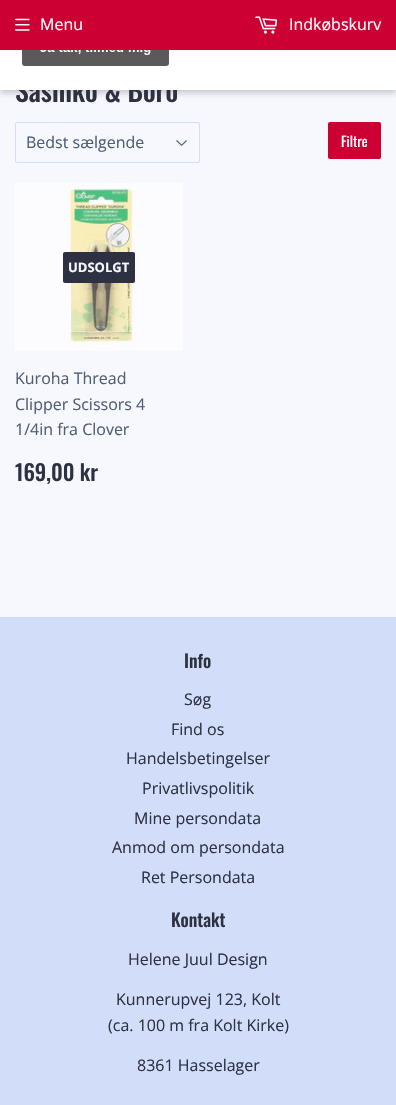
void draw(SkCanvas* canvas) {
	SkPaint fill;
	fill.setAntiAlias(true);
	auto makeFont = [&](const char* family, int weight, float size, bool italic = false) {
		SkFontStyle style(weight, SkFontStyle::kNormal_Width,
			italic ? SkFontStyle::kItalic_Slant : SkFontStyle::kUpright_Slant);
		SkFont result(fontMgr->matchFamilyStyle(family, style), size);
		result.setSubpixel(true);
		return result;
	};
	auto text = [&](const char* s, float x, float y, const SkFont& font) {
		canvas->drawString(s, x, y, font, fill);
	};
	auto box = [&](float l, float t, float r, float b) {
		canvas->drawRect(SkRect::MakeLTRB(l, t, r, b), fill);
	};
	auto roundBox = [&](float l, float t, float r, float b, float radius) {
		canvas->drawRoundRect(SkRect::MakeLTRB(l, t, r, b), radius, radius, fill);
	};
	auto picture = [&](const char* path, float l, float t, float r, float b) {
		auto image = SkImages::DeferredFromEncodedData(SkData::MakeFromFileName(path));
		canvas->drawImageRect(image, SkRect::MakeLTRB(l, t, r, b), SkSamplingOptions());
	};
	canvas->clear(0xFFF6F8FD);
	fill.setColor(0x33000000);
	fill.setMaskFilter(SkMaskFilter::MakeBlur(kNormal_SkBlurStyle, 3));
	canvas->drawRect(SkRect::MakeLTRB(0, 3, 396, 93), fill);
	fill.setMaskFilter(nullptr);
	fill.setColor(0xFFCC0033);
	box(0, 0, 396, 50);
	picture("image1.png", 15, 18, 30, 31);
	picture("image2.png", 255, 16, 278, 34);
	picture("image3.png", 176, 140, 187, 146);
	fill.setStyle(SkPaint::kStroke_Style);
	fill.setStrokeWidth(1);
	fill.setColor(0xFFD2DEF9);
	canvas->drawRoundRect(SkRect::MakeLTRB(15.5f, 122.5f, 199.5f, 162.5f), 1.5f, 1.5f, fill);
	fill.setStyle(SkPaint::kFill_Style);
	fill.setColor(0xFFCC0033);
	roundBox(328, 122, 381, 159, 2);
	picture("image4.png", 15, 183, 183, 351);
	fill.setColor(0xFF2D3142);
	roundBox(63, 252, 135, 283, 2);
	fill.setColor(0xFFD2DEF9);
	box(0, 617, 396, 1105);
	auto font1 = makeFont("Open Sans", 400, 16);
	fill.setColor(0xFFFFFFFF);
	text("Menu", 40, 30, font1);
	text("Indkøbskurv", 289, 30, font1);
	auto font2 = makeFont("Oswald", 500, 27.75f);
	fill.setColor(0xFF2D3142);
	text("Sashiko & Boro", 15, 102, font2);
	fill.setColor(0xFFFFFFFF);
	box(0, 50, 396, 90);
	picture("image0.png", 22, 50, 169, 66);
	fill.setColor(0xFF4F5D75);
	text("Bedst sælgende", 26, 148, font1);
	auto font3 = makeFont("Oswald", 400, 14);
	fill.setColor(0xFFFFFFFF);
	text("Filtre", 341, 147, font3);
	auto font4 = makeFont("Open Sans", 700, 13);
	fill.setColor(0xFFF6F8FD);
	text("UDSOLGT", 68, 272, font4);
	fill.setColor(0xFF4F5D75);
	text("Kuroha Thread", 15, 384, font1);
	text("Clipper Scissors 4", 15, 410, font1);
	text("1/4in fra Clover", 15, 435, font1);
	auto font5 = makeFont("Oswald", 500, 22);
	fill.setColor(0xFF2D3142);
	text("169,00 kr", 15, 481, font5);
	auto font6 = makeFont("Oswald", 500, 18);
	text("Info", 184, 668, font6);
	text("Søg", 184, 705, font1);
	text("Find os", 171, 735, font1);
	text("Handelsbetingelser", 126, 764, font1);
	text("Privatlivspolitik", 142, 794, font1);
	text("Mine persondata", 134, 824, font1);
	text("Anmod om persondata", 112, 853, font1);
	text("Ret Persondata", 141, 883, font1);
	text("Kontakt", 171, 927, font6);
	text("Helene Juul Design", 128, 965, font1);
	text("Kunnerupvej 123, Kolt", 116, 1005, font1);
	text("(ca. 100 m fra Kolt Kirke)", 108, 1031, font1);
	text("8361 Hasselager", 137, 1071, font1);
}
